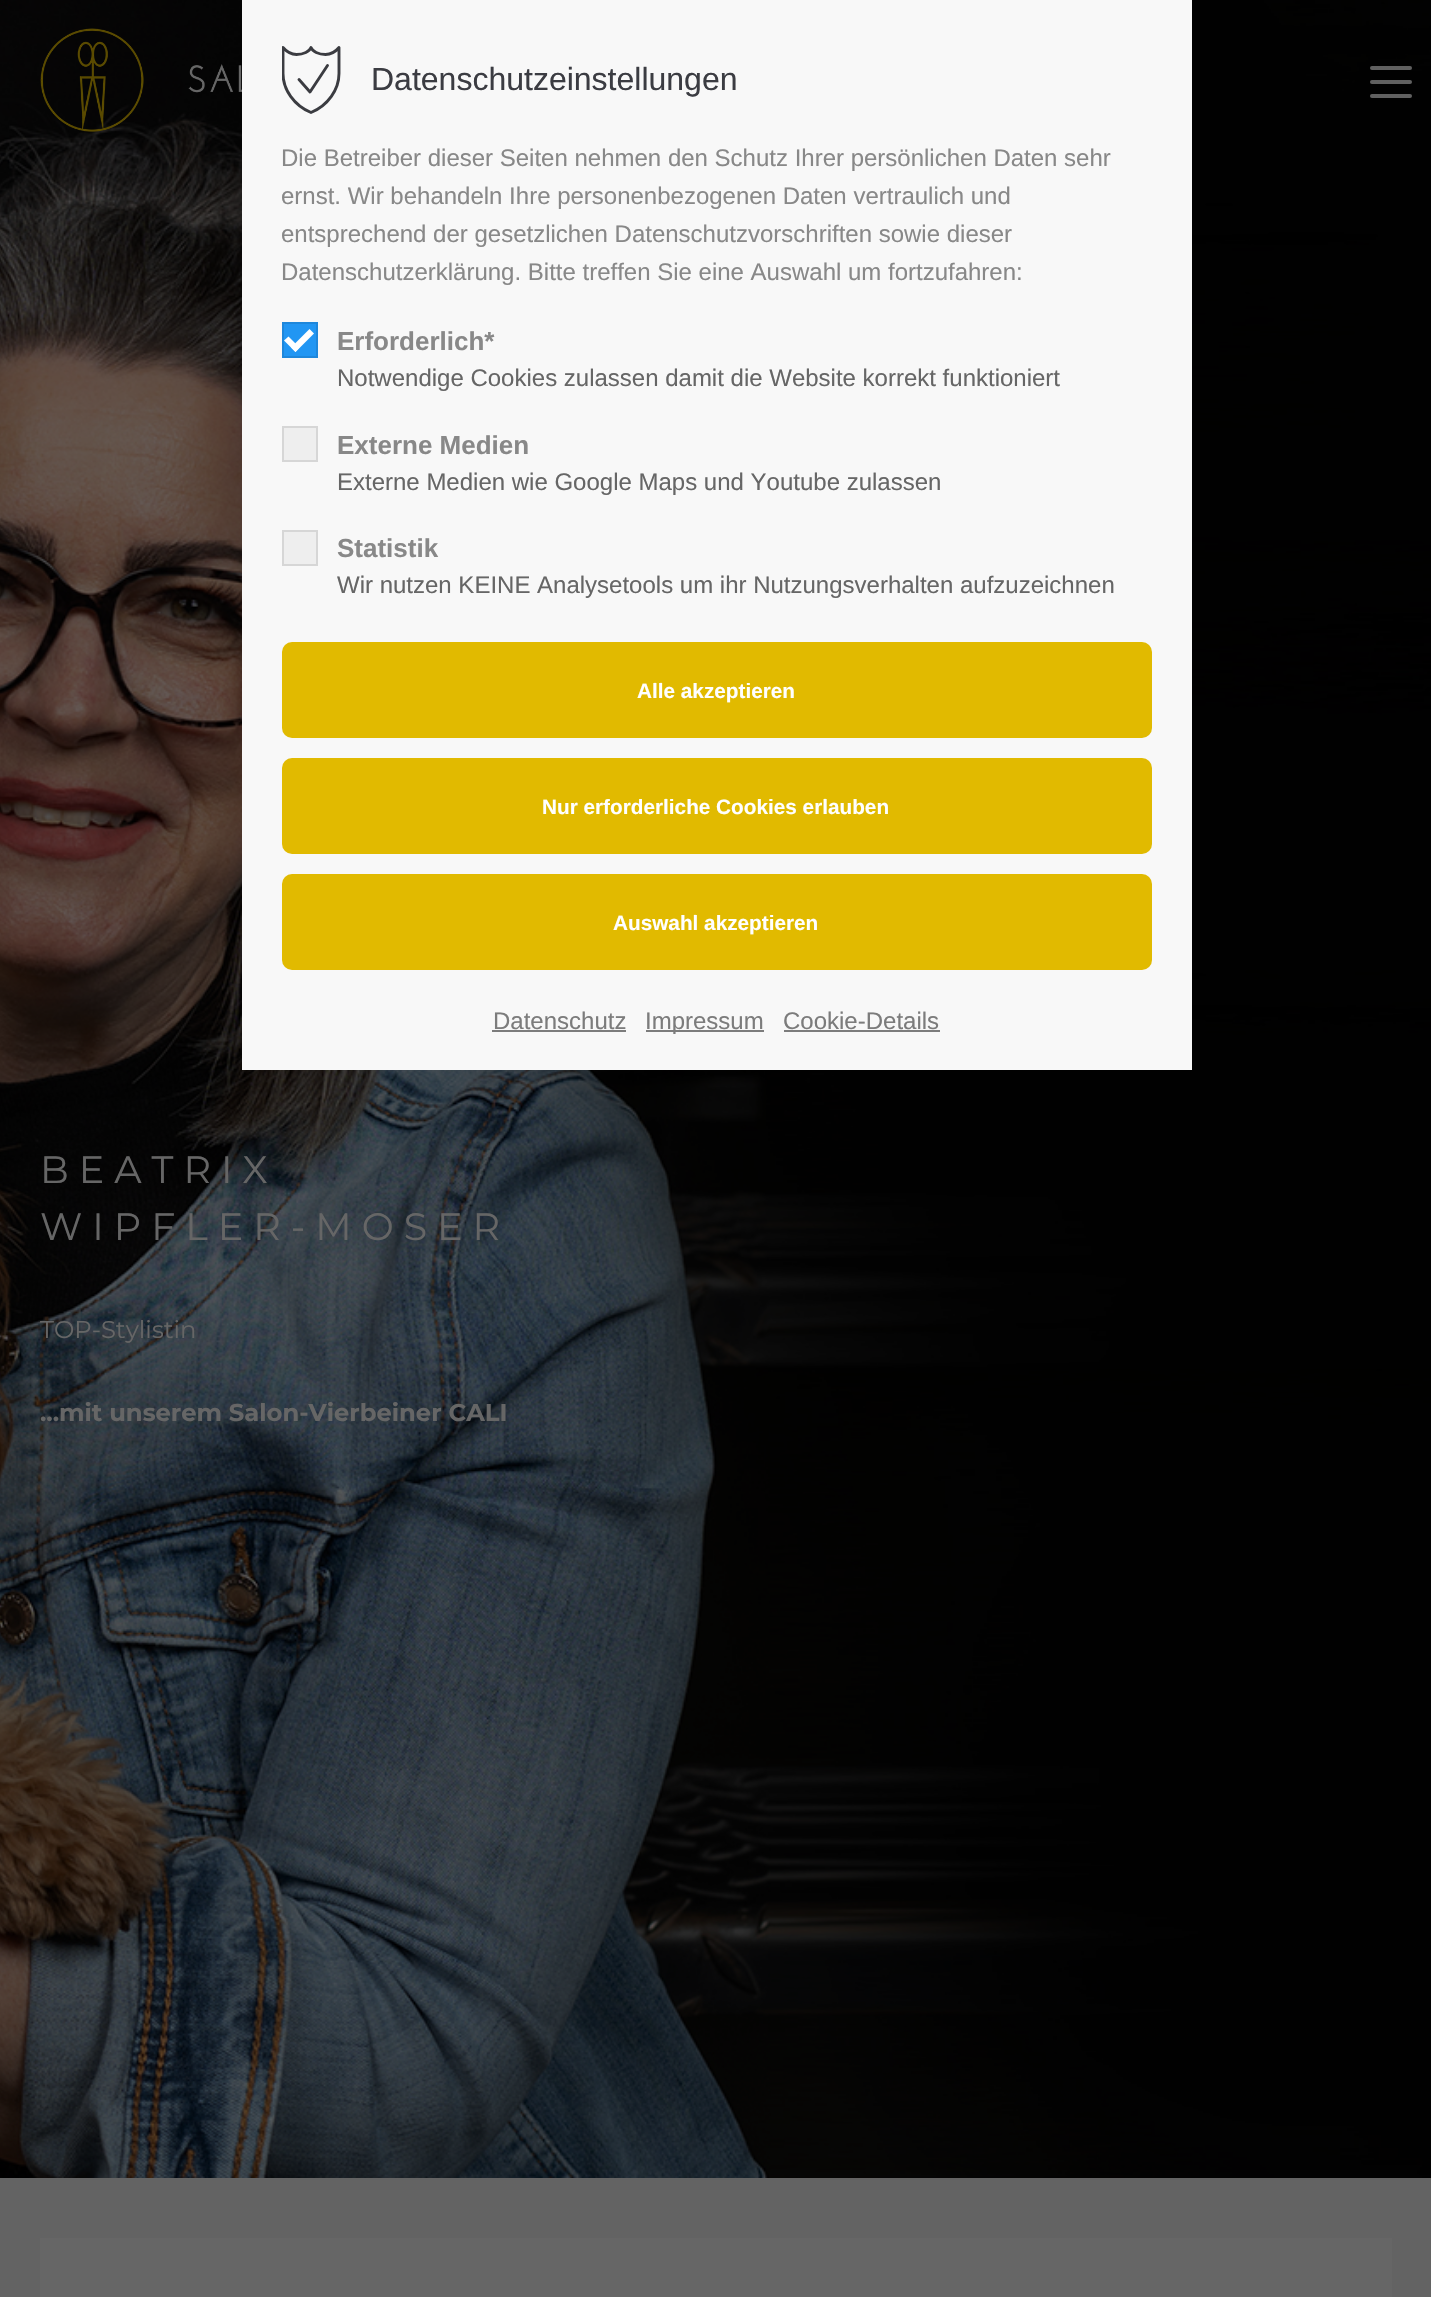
void draw(SkCanvas* canvas) {
	SkPaint fill;
	fill.setAntiAlias(true);
	auto makeFont = [&](const char* family, int weight, float size, bool italic = false) {
		SkFontStyle style(weight, SkFontStyle::kNormal_Width,
			italic ? SkFontStyle::kItalic_Slant : SkFontStyle::kUpright_Slant);
		SkFont result(fontMgr->matchFamilyStyle(family, style), size);
		result.setSubpixel(true);
		return result;
	};
	auto text = [&](const char* s, float x, float y, const SkFont& font) {
		canvas->drawString(s, x, y, font, fill);
	};
	auto spacedText = [&](const char* s, float x, float y, const SkFont& font, const SkPaint& ink, float letter, float word) {
		std::vector<SkGlyphID> glyphs(font.countText(s, strlen(s), SkTextEncoding::kUTF8));
		std::vector<float> xs(glyphs.size());
		font.textToGlyphs(s, strlen(s), SkTextEncoding::kUTF8, glyphs);
		font.getXPos(glyphs, xs, x);
		float extra = 0;
		for (size_t i = 0; i < glyphs.size(); i++) {
			xs[i] += extra;
			extra += letter + word * (glyphs[i] == font.unicharToGlyph(' '));
		}
		canvas->drawTextBlob(SkTextBlob::MakeFromPosHGlyphs(glyphs, xs, y, font), 0, 0, ink);
	};
	auto box = [&](float l, float t, float r, float b) {
		canvas->drawRect(SkRect::MakeLTRB(l, t, r, b), fill);
	};
	auto roundBox = [&](float l, float t, float r, float b, float radius) {
		canvas->drawRoundRect(SkRect::MakeLTRB(l, t, r, b), radius, radius, fill);
	};
	auto picture = [&](const char* path, float l, float t, float r, float b) {
		auto image = SkImages::DeferredFromEncodedData(SkData::MakeFromFileName(path));
		canvas->drawImageRect(image, SkRect::MakeLTRB(l, t, r, b), SkSamplingOptions());
	};
	canvas->clear(0xFFFFFFFF);
	picture("image1.png", 0, 0, 1431, 2178);
	fill.setColor(0xFFF8F8F8);
	box(242, 0, 1192, 1070);
	canvas->save();
	canvas->clipRect(SkRect::MakeLTRB(282, 46, 342, 114));
	fill.setStyle(SkPaint::kStroke_Style);
	fill.setStrokeWidth(2.9f);
	fill.setStrokeCap(SkPaint::kRound_Cap);
	fill.setStrokeJoin(SkPaint::kRound_Join);
	fill.setColor(0xFF3B3C41);
	canvas->drawPath(SkPathBuilder().moveTo(311, 112.5f).cubicTo(294, 105.5f, 283, 89.5f, 283, 73.5f).lineTo(283, 47.5f).cubicTo(285.5f, 50.5f, 290.5f, 54.5f, 296.5f, 54.5f).cubicTo(303.5f, 54.5f, 309.5f, 51.5f, 311, 47.5f).cubicTo(312.5f, 51.5f, 318.5f, 54.5f, 325.5f, 54.5f).cubicTo(331.5f, 54.5f, 336.5f, 50.5f, 339, 47.5f).lineTo(339, 73.5f).cubicTo(339, 89.5f, 328, 105.5f, 311, 112.5f).close().detach(), fill);
	canvas->restore();
	canvas->drawPath(SkPathBuilder().moveTo(299, 79.5f).lineTo(310, 92).lineTo(327.5f, 65.5f).detach(), fill);
	fill.setStyle(SkPaint::kFill_Style);
	fill.setColor(0xFF2196F3);
	canvas->drawRect(SkRect::MakeLTRB(283, 323, 317, 357), fill);
	fill.setStyle(SkPaint::kStroke_Style);
	fill.setStrokeWidth(2);
	fill.setStrokeCap(SkPaint::kButt_Cap);
	fill.setStrokeJoin(SkPaint::kMiter_Join);
	fill.setColor(0xFF1E87DB);
	canvas->drawRect(SkRect::MakeLTRB(283, 323, 317, 357), fill);
	fill.setStyle(SkPaint::kFill_Style);
	fill.setColor(0xFFFFFFFF);
	canvas->drawPath(SkPathBuilder().moveTo(309.5f, 329).lineTo(314, 333.5f).lineTo(295.5f, 352).lineTo(291, 347.5f).close().detach(), fill);
	canvas->drawPath(SkPathBuilder().moveTo(288.5f, 336.5f).lineTo(299.5f, 347.5f).lineTo(295.5f, 352).lineTo(284, 340.5f).close().detach(), fill);
	fill.setColor(0xFFEEEEEE);
	canvas->drawRect(SkRect::MakeLTRB(283, 427, 317, 461), fill);
	fill.setStyle(SkPaint::kStroke_Style);
	fill.setColor(0xFFD6D6D6);
	canvas->drawRect(SkRect::MakeLTRB(283, 427, 317, 461), fill);
	fill.setStyle(SkPaint::kFill_Style);
	fill.setColor(0xFFEEEEEE);
	canvas->drawRect(SkRect::MakeLTRB(283, 531, 317, 565), fill);
	fill.setStyle(SkPaint::kStroke_Style);
	fill.setColor(0xFFD6D6D6);
	canvas->drawRect(SkRect::MakeLTRB(283, 531, 317, 565), fill);
	fill.setStyle(SkPaint::kFill_Style);
	fill.setColor(0xFFE1BA00);
	roundBox(282, 642, 1152, 738, 10);
	roundBox(282, 758, 1152, 854, 10);
	roundBox(282, 874, 1152, 970, 10);
	fill.setColor(0xFF7C7C7C);
	box(492, 1030, 626, 1032);
	box(646, 1030, 764, 1032);
	box(784, 1030, 940, 1032);
	picture("image0.png", 40, 28, 242, 132);
	fill.setColor(0xFF606060);
	roundBox(1370, 80, 1412, 84, 2);
	roundBox(1370, 66, 1412, 70, 2);
	roundBox(1370, 94, 1412, 98, 2);
	fill.setColor(0xFF636363);
	box(0, 2178, 1431, 2297);
	fill.setColor(0xFF666666);
	box(40, 2238, 1392, 2297);
	auto font1 = makeFont("Liberation Sans", 400, 32);
	fill.setColor(0xFF3B3C42);
	text("Datenschutzeinstellungen", 371, 90, font1);
	auto font2 = makeFont("Liberation Sans", 400, 24);
	fill.setColor(0xFF888888);
	text("Die Betreiber dieser Seiten nehmen den Schutz Ihrer persönlichen Daten sehr", 281, 166, font2);
	text("ernst. Wir behandeln Ihre personenbezogenen Daten vertraulich und", 281, 204, font2);
	text("entsprechend der gesetzlichen Datenschutzvorschriften sowie dieser", 281, 242, font2);
	text("Datenschutzerklärung. Bitte treffen Sie eine Auswahl um fortzufahren:", 281, 280, font2);
	auto font3 = makeFont("Liberation Sans", 700, 26);
	text("Erforderlich*", 337, 350, font3);
	fill.setColor(0xFF666666);
	text("Notwendige Cookies zulassen damit die Website korrekt funktioniert", 337, 386, font2);
	fill.setColor(0xFF888888);
	text("Externe Medien", 337, 454, font3);
	fill.setColor(0xFF666666);
	text("Externe Medien wie Google Maps und Youtube zulassen", 337, 490, font2);
	fill.setColor(0xFF888888);
	text("Statistik", 337, 557, font3);
	fill.setColor(0xFF666666);
	text("Wir nutzen KEINE Analysetools um ihr Nutzungsverhalten aufzuzeichnen", 337, 593, font2);
	auto font4 = makeFont("Liberation Sans", 700, 20.75f);
	fill.setColor(0xFFFFFFFF);
	text("Alle akzeptieren", 637, 698, font4);
	text("Nur erforderliche Cookies erlauben", 542, 814, font4);
	text("Auswahl akzeptieren", 613, 930, font4);
	fill.setColor(0xFF7C7C7C);
	text("Datenschutz", 493, 1029, font2);
	text("Impressum", 645, 1029, font2);
	text("Cookie-Details", 783, 1029, font2);
	auto font5 = makeFont("Montserrat", 100, 38.1f);
	fill.setColor(0xFF666666);
	spacedText("BEATRIX", 40, 1183, font5, fill, 10, 0);
	spacedText("WIPFLER-MOSER", 40, 1240, font5, fill, 10, 0);
	auto font6 = makeFont("Montserrat", 100, 24.25f);
	text("TOP-Stylistin", 40, 1338, font6);
	auto font7 = makeFont("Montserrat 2", 100, 24.25f);
	text("...mit unserem Salon-Vierbeiner CALI", 40, 1421, font7);
}
